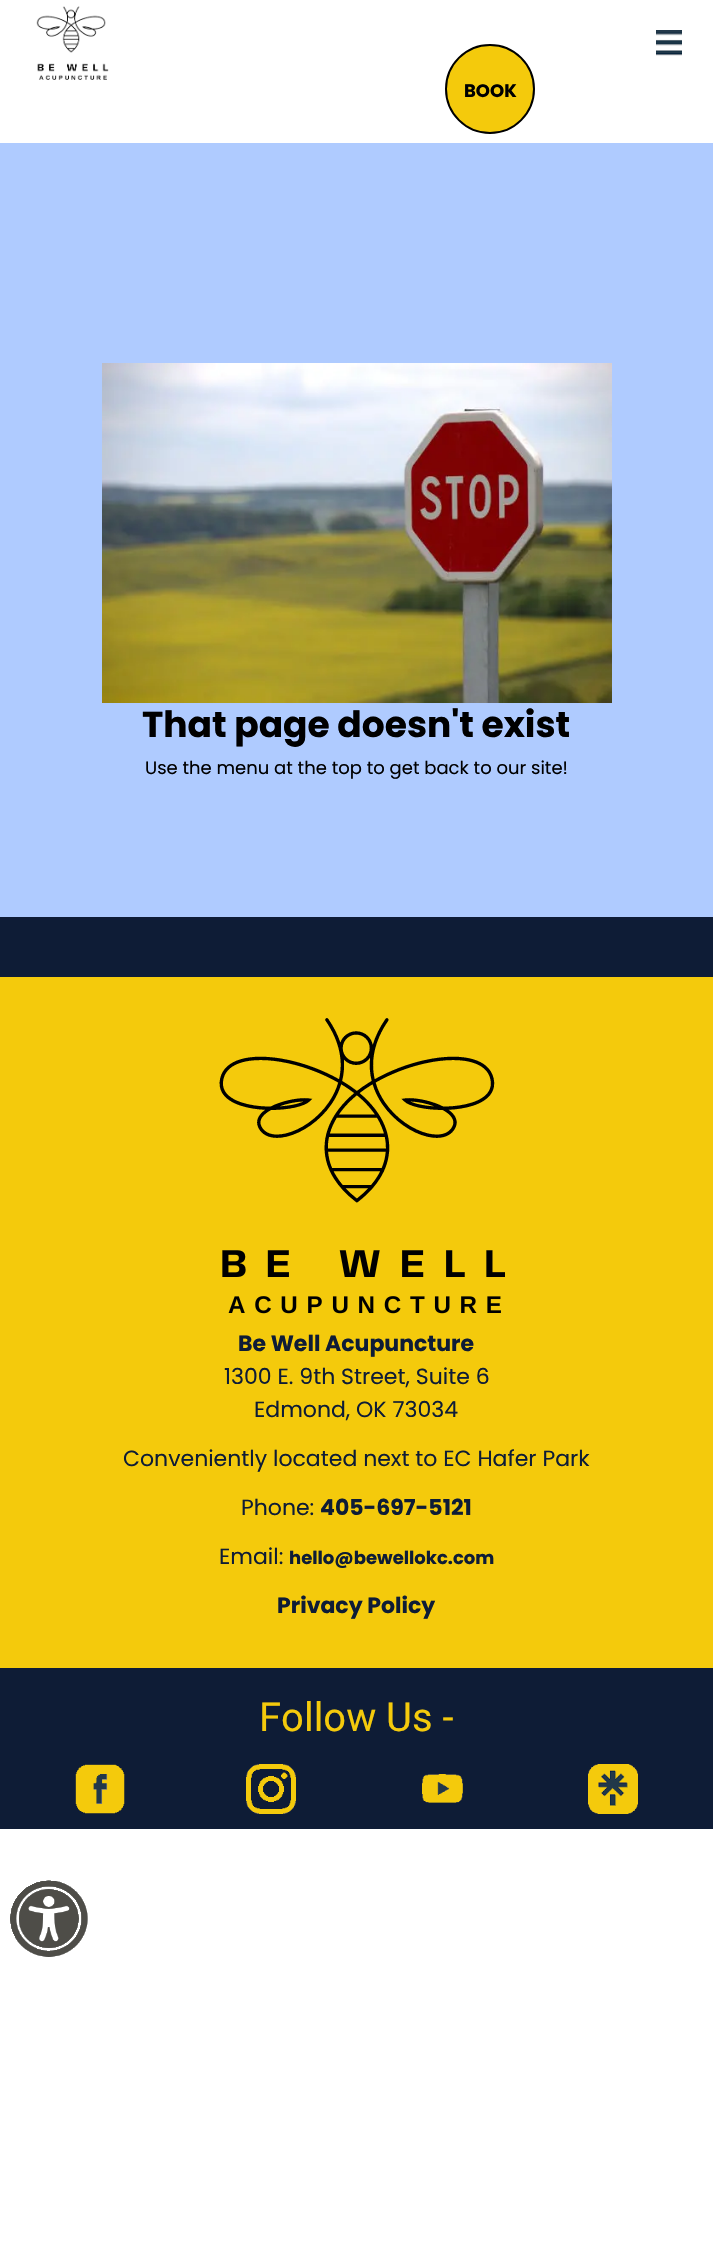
void draw(SkCanvas* canvas) {
	SkPaint fill;
	fill.setAntiAlias(true);
	auto makeFont = [&](const char* family, int weight, float size, bool italic = false) {
		SkFontStyle style(weight, SkFontStyle::kNormal_Width,
			italic ? SkFontStyle::kItalic_Slant : SkFontStyle::kUpright_Slant);
		SkFont result(fontMgr->matchFamilyStyle(family, style), size);
		result.setSubpixel(true);
		return result;
	};
	auto text = [&](const char* s, float x, float y, const SkFont& font) {
		canvas->drawString(s, x, y, font, fill);
	};
	auto box = [&](float l, float t, float r, float b) {
		canvas->drawRect(SkRect::MakeLTRB(l, t, r, b), fill);
	};
	auto picture = [&](const char* path, float l, float t, float r, float b) {
		auto image = SkImages::DeferredFromEncodedData(SkData::MakeFromFileName(path));
		canvas->drawImageRect(image, SkRect::MakeLTRB(l, t, r, b), SkSamplingOptions());
	};
	canvas->clear(0xFFFFFFFF);
	picture("image0.png", 36, 6, 109, 80);
	picture("image1.png", 656, 30, 682, 56);
	fill.setColor(0xFFF4CA0C);
	canvas->drawCircle(490, 89, 44, fill);
	fill.setStyle(SkPaint::kStroke_Style);
	fill.setStrokeWidth(2);
	fill.setColor(0xFF000000);
	canvas->drawCircle(490, 89, 44, fill);
	fill.setStyle(SkPaint::kFill_Style);
	fill.setColor(0xFFAFCBFF);
	box(0, 143, 713, 917);
	picture("image2.png", 102, 363, 612, 703);
	fill.setColor(0xFF0E1C36);
	box(0, 917, 713, 977);
	fill.setColor(0xFFF4CA0C);
	box(0, 977, 713, 1668);
	picture("image3.png", 219, 1018, 505, 1314);
	fill.setColor(0xFF0E1C36);
	box(0, 1668, 713, 1829);
	picture("image4.png", 75, 1764, 125, 1814);
	picture("image5.png", 246, 1764, 296, 1814);
	picture("image6.png", 422, 1774, 463, 1803);
	picture("image7.png", 588, 1764, 638, 1814);
	picture("image8.png", 10, 1880, 88, 1957);
	auto font1 = makeFont("Poppins", 700, 18);
	fill.setColor(0xFF000000);
	text("BOOK", 464, 97, font1);
	auto font2 = makeFont("Poppins", 700, 36);
	text("That page doesn't exist", 142, 737, font2);
	auto font3 = makeFont("Poppins", 400, 18);
	text("Use the menu at the top to get back to our site!", 145, 774, font3);
	auto font4 = makeFont("Poppins", 700, 22);
	fill.setColor(0xFF0E1C36);
	text("Be Well Acupuncture", 238, 1351, font4);
	auto font5 = makeFont("Poppins", 400, 22);
	text("1300 E. 9th Street, Suite 6", 224, 1384, font5);
	text("Edmond, OK 73034", 254, 1417, font5);
	text("Conveniently located next to EC Hafer Park", 123, 1466, font5);
	text("Phone:", 241, 1515, font5);
	text("405-697-5121", 320, 1515, font4);
	text("Email:", 219, 1564, font5);
	text("hello@bewellokc.com", 289, 1564, font1);
	text("Privacy Policy", 277, 1613, font4);
	auto font6 = makeFont("Roboto", 400, 40);
	fill.setColor(0xFFF4CA0C);
	text("Follow Us -", 259, 1731, font6);
}
